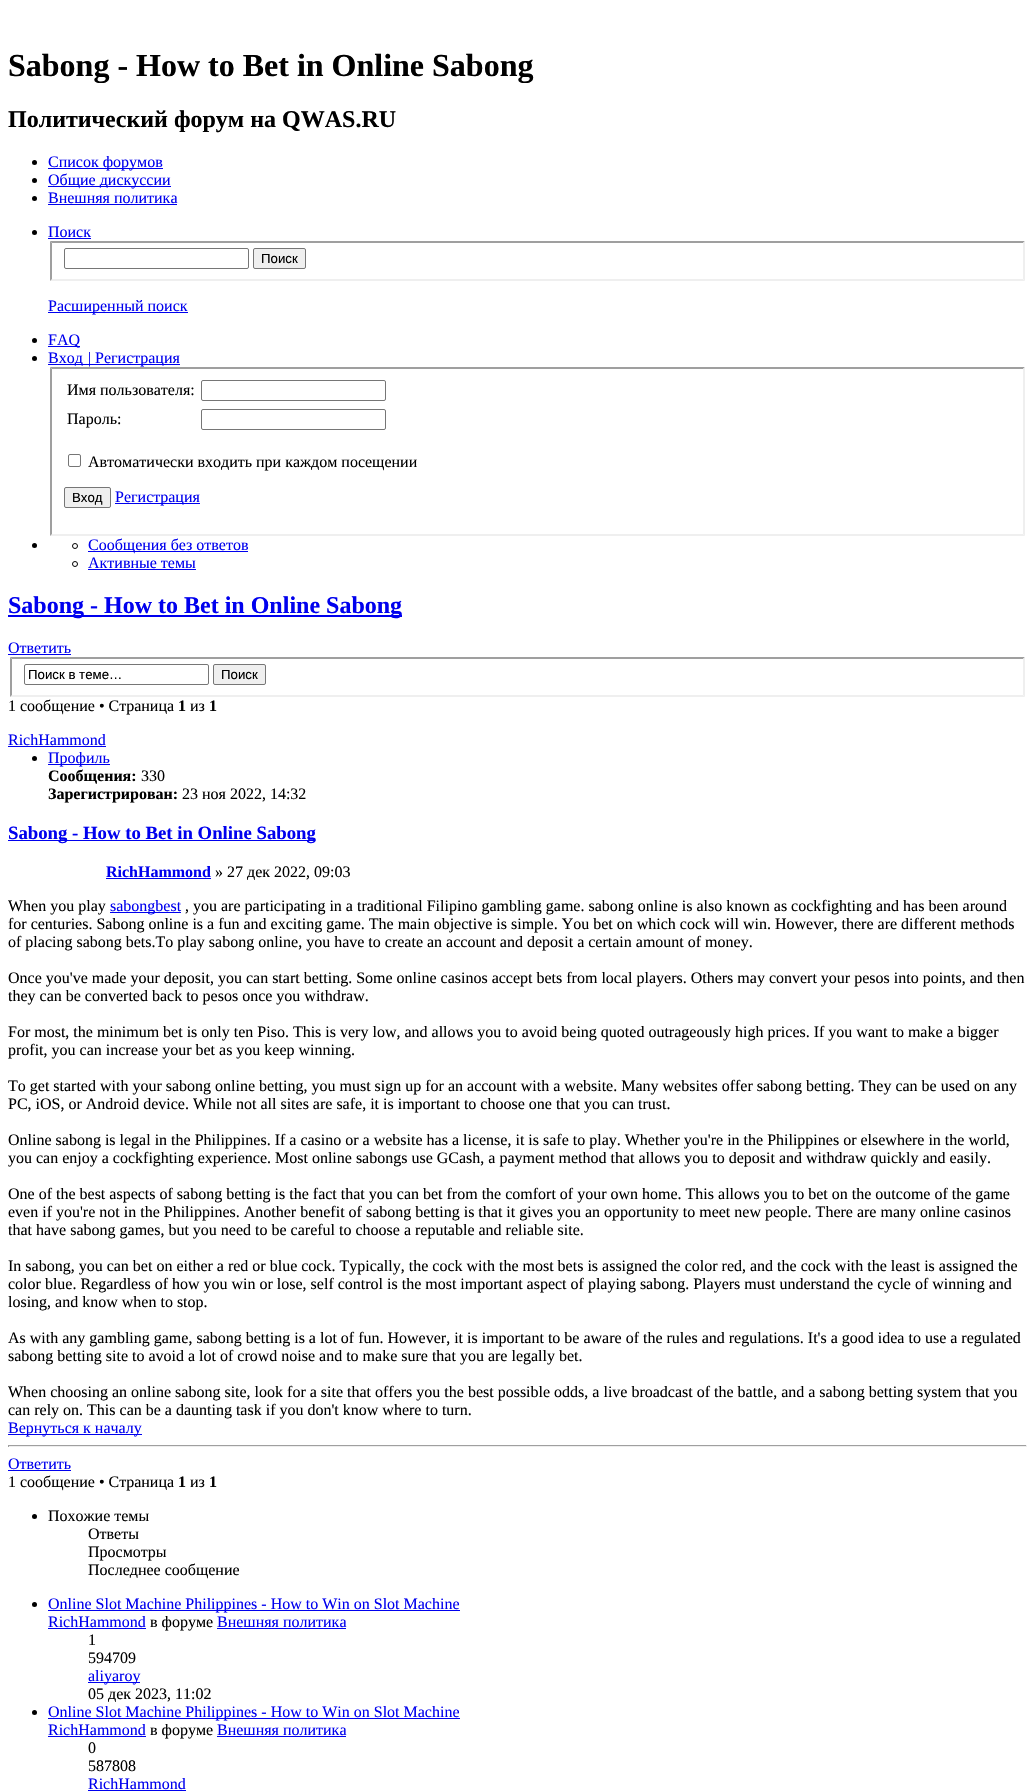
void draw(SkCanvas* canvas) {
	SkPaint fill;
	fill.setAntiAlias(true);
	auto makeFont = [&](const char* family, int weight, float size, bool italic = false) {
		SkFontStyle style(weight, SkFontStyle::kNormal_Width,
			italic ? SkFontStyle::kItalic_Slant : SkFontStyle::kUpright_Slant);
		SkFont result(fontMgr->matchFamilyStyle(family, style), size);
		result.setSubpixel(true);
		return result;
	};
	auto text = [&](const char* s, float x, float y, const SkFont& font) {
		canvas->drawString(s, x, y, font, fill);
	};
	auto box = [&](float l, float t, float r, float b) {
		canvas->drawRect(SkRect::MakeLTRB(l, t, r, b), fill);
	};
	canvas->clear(0xFFFFFFFF);
	fill.setColor(0xFF000000);
	canvas->drawCircle(34.5f, 162.5f, 2.5f, fill);
	fill.setColor(0xFF0000EE);
	box(48, 168, 163, 169);
	fill.setColor(0xFF000000);
	canvas->drawCircle(34.5f, 180.5f, 2.5f, fill);
	fill.setColor(0xFF0000EE);
	box(48, 186, 171, 187);
	fill.setColor(0xFF000000);
	canvas->drawCircle(34.5f, 198.5f, 2.5f, fill);
	fill.setColor(0xFF0000EE);
	box(48, 204, 177, 205);
	fill.setColor(0xFF000000);
	canvas->drawCircle(34.5f, 232.5f, 2.5f, fill);
	fill.setColor(0xFF0000EE);
	box(48, 238, 91, 239);
	fill.setColor(0xFF9F9F9F);
	canvas->drawPath(SkPathBuilder().moveTo(50, 241).lineTo(1025, 241).lineTo(1023, 243).lineTo(52, 243).close().detach(), fill);
	fill.setColor(0xFFEFEFEF);
	canvas->drawPath(SkPathBuilder().moveTo(1025, 241).lineTo(1025, 281).lineTo(1023, 279).lineTo(1023, 243).close().detach(), fill);
	canvas->drawPath(SkPathBuilder().moveTo(1025, 281).lineTo(50, 281).lineTo(52, 279).lineTo(1023, 279).close().detach(), fill);
	fill.setColor(0xFF9F9F9F);
	canvas->drawPath(SkPathBuilder().moveTo(50, 281).lineTo(50, 241).lineTo(52, 243).lineTo(52, 279).close().detach(), fill);
	fill.setStyle(SkPaint::kStroke_Style);
	fill.setStrokeWidth(1);
	fill.setColor(0xFF767676);
	canvas->drawRoundRect(SkRect::MakeLTRB(64.5f, 248.5f, 248.5f, 268.5f), 1.5f, 1.5f, fill);
	fill.setStyle(SkPaint::kFill_Style);
	fill.setColor(0xFFEFEFEF);
	canvas->drawRoundRect(SkRect::MakeLTRB(253.5f, 248.5f, 305.5f, 268.5f), 1.5f, 1.5f, fill);
	fill.setStyle(SkPaint::kStroke_Style);
	fill.setColor(0xFF767676);
	canvas->drawRoundRect(SkRect::MakeLTRB(253.5f, 248.5f, 305.5f, 268.5f), 1.5f, 1.5f, fill);
	fill.setStyle(SkPaint::kFill_Style);
	fill.setColor(0xFF0000EE);
	box(48, 312, 188, 313);
	fill.setColor(0xFF000000);
	canvas->drawCircle(34.5f, 340.5f, 2.5f, fill);
	fill.setColor(0xFF0000EE);
	box(48, 346, 80, 347);
	fill.setColor(0xFF000000);
	canvas->drawCircle(34.5f, 358.5f, 2.5f, fill);
	fill.setColor(0xFF0000EE);
	box(48, 364, 180, 365);
	fill.setColor(0xFF9F9F9F);
	canvas->drawPath(SkPathBuilder().moveTo(50, 367).lineTo(1025, 367).lineTo(1023, 369).lineTo(52, 369).close().detach(), fill);
	fill.setColor(0xFFEFEFEF);
	canvas->drawPath(SkPathBuilder().moveTo(1025, 367).lineTo(1025, 536).lineTo(1023, 534).lineTo(1023, 369).close().detach(), fill);
	canvas->drawPath(SkPathBuilder().moveTo(1025, 536).lineTo(50, 536).lineTo(52, 534).lineTo(1023, 534).close().detach(), fill);
	fill.setColor(0xFF9F9F9F);
	canvas->drawPath(SkPathBuilder().moveTo(50, 536).lineTo(50, 367).lineTo(52, 369).lineTo(52, 534).close().detach(), fill);
	fill.setStyle(SkPaint::kStroke_Style);
	fill.setColor(0xFF767676);
	canvas->drawRoundRect(SkRect::MakeLTRB(201.5f, 380.5f, 385.5f, 400.5f), 1.5f, 1.5f, fill);
	canvas->drawRoundRect(SkRect::MakeLTRB(201.5f, 409.5f, 385.5f, 429.5f), 1.5f, 1.5f, fill);
	canvas->drawRoundRect(SkRect::MakeLTRB(68.5f, 454.5f, 80.5f, 466.5f), 1.5f, 1.5f, fill);
	fill.setStyle(SkPaint::kFill_Style);
	fill.setColor(0xFFEFEFEF);
	canvas->drawRoundRect(SkRect::MakeLTRB(64.5f, 487.5f, 110.5f, 507.5f), 1.5f, 1.5f, fill);
	fill.setStyle(SkPaint::kStroke_Style);
	fill.setColor(0xFF767676);
	canvas->drawRoundRect(SkRect::MakeLTRB(64.5f, 487.5f, 110.5f, 507.5f), 1.5f, 1.5f, fill);
	fill.setStyle(SkPaint::kFill_Style);
	fill.setColor(0xFF0000EE);
	box(115, 503, 200, 504);
	fill.setColor(0xFF000000);
	canvas->drawCircle(34.5f, 545.5f, 2.5f, fill);
	fill.setStyle(SkPaint::kStroke_Style);
	canvas->drawCircle(75, 546, 2.5f, fill);
	fill.setStyle(SkPaint::kFill_Style);
	fill.setColor(0xFF0000EE);
	box(88, 551, 248, 552);
	fill.setStyle(SkPaint::kStroke_Style);
	fill.setColor(0xFF000000);
	canvas->drawCircle(75, 564, 2.5f, fill);
	fill.setStyle(SkPaint::kFill_Style);
	fill.setColor(0xFF0000EE);
	box(88, 569, 196, 570);
	box(8, 615, 402, 617);
	box(8, 654, 71, 655);
	fill.setColor(0xFF9F9F9F);
	canvas->drawPath(SkPathBuilder().moveTo(10, 657).lineTo(1025, 657).lineTo(1023, 659).lineTo(12, 659).close().detach(), fill);
	fill.setColor(0xFFEFEFEF);
	canvas->drawPath(SkPathBuilder().moveTo(1025, 657).lineTo(1025, 697).lineTo(1023, 695).lineTo(1023, 659).close().detach(), fill);
	canvas->drawPath(SkPathBuilder().moveTo(1025, 697).lineTo(10, 697).lineTo(12, 695).lineTo(1023, 695).close().detach(), fill);
	fill.setColor(0xFF9F9F9F);
	canvas->drawPath(SkPathBuilder().moveTo(10, 697).lineTo(10, 657).lineTo(12, 659).lineTo(12, 695).close().detach(), fill);
	fill.setStyle(SkPaint::kStroke_Style);
	fill.setColor(0xFF767676);
	canvas->drawRoundRect(SkRect::MakeLTRB(24.5f, 664.5f, 208.5f, 684.5f), 1.5f, 1.5f, fill);
	fill.setStyle(SkPaint::kFill_Style);
	fill.setColor(0xFFEFEFEF);
	canvas->drawRoundRect(SkRect::MakeLTRB(213.5f, 664.5f, 265.5f, 684.5f), 1.5f, 1.5f, fill);
	fill.setStyle(SkPaint::kStroke_Style);
	fill.setColor(0xFF767676);
	canvas->drawRoundRect(SkRect::MakeLTRB(213.5f, 664.5f, 265.5f, 684.5f), 1.5f, 1.5f, fill);
	fill.setStyle(SkPaint::kFill_Style);
	fill.setColor(0xFF0000EE);
	box(8, 746, 106, 747);
	fill.setColor(0xFF000000);
	canvas->drawCircle(34.5f, 758.5f, 2.5f, fill);
	fill.setColor(0xFF0000EE);
	box(48, 764, 110, 765);
	box(8, 840, 315, 841);
	box(106, 878, 211, 879);
	box(110, 912, 181, 913);
	box(8, 1434, 142, 1435);
	fill.setColor(0xFF9F9F9F);
	box(8, 1445, 1027, 1446);
	fill.setColor(0xFFEEEEEE);
	box(1026, 1445, 1027, 1447);
	box(8, 1446, 1027, 1447);
	fill.setColor(0xFF9F9F9F);
	box(8, 1445, 9, 1447);
	fill.setColor(0xFF0000EE);
	box(8, 1470, 71, 1471);
	fill.setColor(0xFF000000);
	canvas->drawCircle(34.5f, 1516.5f, 2.5f, fill);
	canvas->drawCircle(34.5f, 1604.5f, 2.5f, fill);
	fill.setColor(0xFF0000EE);
	box(48, 1610, 460, 1611);
	box(48, 1628, 146, 1629);
	box(217, 1628, 346, 1629);
	box(88, 1682, 140, 1683);
	fill.setColor(0xFF000000);
	canvas->drawCircle(34.5f, 1712.5f, 2.5f, fill);
	fill.setColor(0xFF0000EE);
	box(48, 1718, 460, 1719);
	box(48, 1736, 146, 1737);
	box(217, 1736, 346, 1737);
	box(88, 1790, 186, 1791);
	auto font1 = makeFont("Liberation Serif", 700, 32);
	fill.setColor(0xFF000000);
	text("Sabong - How to Bet in Online Sabong", 8, 76, font1);
	auto font2 = makeFont("Liberation Serif", 700, 24);
	text("Политический форум на QWAS.RU", 8, 127, font2);
	auto font3 = makeFont("Liberation Serif", 400, 16);
	fill.setColor(0xFF0000EE);
	text("Список форумов", 48, 167, font3);
	text("Общие дискуссии", 48, 185, font3);
	text("Внешняя политика", 48, 203, font3);
	text("Поиск", 48, 237, font3);
	auto font4 = makeFont("Liberation Sans", 400, 13.25f);
	fill.setColor(0xFF000000);
	text("Поиск", 261, 263, font4);
	fill.setColor(0xFF0000EE);
	text("Расширенный поиск", 48, 311, font3);
	text("FAQ", 48, 345, font3);
	text("Вход", 48, 363, font3);
	auto font5 = makeFont("Liberation Serif", 400, 16, true);
	text("|", 87, 363, font5);
	text("Регистрация", 95, 363, font3);
	fill.setColor(0xFF000000);
	text("Имя пользователя:", 67, 395, font3);
	text("Пароль:", 67, 424, font3);
	text("Автоматически входить при каждом посещении", 88, 467, font3);
	text("Вход", 72, 502, font4);
	fill.setColor(0xFF0000EE);
	text("Регистрация", 115, 502, font3);
	text("Сообщения без ответов", 88, 550, font3);
	text("Активные темы", 88, 568, font3);
	text("Sabong - How to Bet in Online Sabong", 8, 613, font2);
	text("Ответить", 8, 653, font3);
	fill.setColor(0xFF000000);
	text("Поиск в теме…", 28, 679, font4);
	text("Поиск", 221, 679, font4);
	text("1 сообщение • Страница", 8, 711, font3);
	auto font6 = makeFont("Liberation Serif", 700, 16);
	text("1", 178, 711, font6);
	text("из", 190, 711, font3);
	text("1", 209, 711, font6);
	fill.setColor(0xFF0000EE);
	text("RichHammond", 8, 745, font3);
	text("Профиль", 48, 763, font3);
	fill.setColor(0xFF000000);
	text("Сообщения:", 48, 781, font6);
	text("330", 141, 781, font3);
	text("Зарегистрирован:", 48, 799, font6);
	text("23 ноя 2022, 14:32", 182, 799, font3);
	auto font7 = makeFont("Liberation Serif", 700, 18.75f);
	fill.setColor(0xFF0000EE);
	text("Sabong - How to Bet in Online Sabong", 8, 839, font7);
	text("RichHammond", 106, 877, font6);
	fill.setColor(0xFF000000);
	text("» 27 дек 2022, 09:03", 215, 877, font3);
	text("When you play", 8, 911, font3);
	fill.setColor(0xFF0000EE);
	text("sabongbest", 110, 911, font3);
	fill.setColor(0xFF000000);
	text(", you are participating in a traditional Filipino gambling game. sabong online is also known as cockfighting and has been around", 185, 911, font3);
	text("for centuries. Sabong online is a fun and exciting game. The main objective is simple. You bet on which cock will win. However, there are different methods", 8, 929, font3);
	text("of placing sabong bets.To play sabong online, you have to create an account and deposit a certain amount of money.", 8, 947, font3);
	text("Once you've made your deposit, you can start betting. Some online casinos accept bets from local players. Others may convert your pesos into points, and then", 8, 983, font3);
	text("they can be converted back to pesos once you withdraw.", 8, 1001, font3);
	text("For most, the minimum bet is only ten Piso. This is very low, and allows you to avoid being quoted outrageously high prices. If you want to make a bigger", 8, 1037, font3);
	text("profit, you can increase your bet as you keep winning.", 8, 1055, font3);
	text("To get started with your sabong online betting, you must sign up for an account with a website. Many websites offer sabong betting. They can be used on any", 8, 1091, font3);
	text("PC, iOS, or Android device. While not all sites are safe, it is important to choose one that you can trust.", 8, 1109, font3);
	text("Online sabong is legal in the Philippines. If a casino or a website has a license, it is safe to play. Whether you're in the Philippines or elsewhere in the world,", 8, 1145, font3);
	text("you can enjoy a cockfighting experience. Most online sabongs use GCash, a payment method that allows you to deposit and withdraw quickly and easily.", 8, 1163, font3);
	text("One of the best aspects of sabong betting is the fact that you can bet from the comfort of your own home. This allows you to bet on the outcome of the game", 8, 1199, font3);
	text("even if you're not in the Philippines. Another benefit of sabong betting is that it gives you an opportunity to meet new people. There are many online casinos", 8, 1217, font3);
	text("that have sabong games, but you need to be careful to choose a reputable and reliable site.", 8, 1235, font3);
	text("In sabong, you can bet on either a red or blue cock. Typically, the cock with the most bets is assigned the color red, and the cock with the least is assigned the", 8, 1271, font3);
	text("color blue. Regardless of how you win or lose, self control is the most important aspect of playing sabong. Players must understand the cycle of winning and", 8, 1289, font3);
	text("losing, and know when to stop.", 8, 1307, font3);
	text("As with any gambling game, sabong betting is a lot of fun. However, it is important to be aware of the rules and regulations. It's a good idea to use a regulated", 8, 1343, font3);
	text("sabong betting site to avoid a lot of crowd noise and to make sure that you are legally bet.", 8, 1361, font3);
	text("When choosing an online sabong site, look for a site that offers you the best possible odds, a live broadcast of the battle, and a sabong betting system that you", 8, 1397, font3);
	text("can rely on. This can be a daunting task if you don't know where to turn.", 8, 1415, font3);
	fill.setColor(0xFF0000EE);
	text("Вернуться к началу", 8, 1433, font3);
	text("Ответить", 8, 1469, font3);
	fill.setColor(0xFF000000);
	text("1 сообщение • Страница", 8, 1487, font3);
	text("1", 178, 1487, font6);
	text("из", 190, 1487, font3);
	text("1", 209, 1487, font6);
	text("Похожие темы", 48, 1521, font3);
	text("Ответы", 88, 1539, font3);
	text("Просмотры", 88, 1557, font3);
	text("Последнее сообщение", 88, 1575, font3);
	fill.setColor(0xFF0000EE);
	text("Online Slot Machine Philippines - How to Win on Slot Machine", 48, 1609, font3);
	text("RichHammond", 48, 1627, font3);
	fill.setColor(0xFF000000);
	text("в форуме", 150, 1627, font3);
	fill.setColor(0xFF0000EE);
	text("Внешняя политика", 217, 1627, font3);
	fill.setColor(0xFF000000);
	text("1", 88, 1645, font3);
	text("594709", 88, 1663, font3);
	fill.setColor(0xFF0000EE);
	text("aliyaroy", 88, 1681, font3);
	fill.setColor(0xFF000000);
	text("05 дек 2023, 11:02", 88, 1699, font3);
	fill.setColor(0xFF0000EE);
	text("Online Slot Machine Philippines - How to Win on Slot Machine", 48, 1717, font3);
	text("RichHammond", 48, 1735, font3);
	fill.setColor(0xFF000000);
	text("в форуме", 150, 1735, font3);
	fill.setColor(0xFF0000EE);
	text("Внешняя политика", 217, 1735, font3);
	fill.setColor(0xFF000000);
	text("0", 88, 1753, font3);
	text("587808", 88, 1771, font3);
	fill.setColor(0xFF0000EE);
	text("RichHammond", 88, 1789, font3);
}
